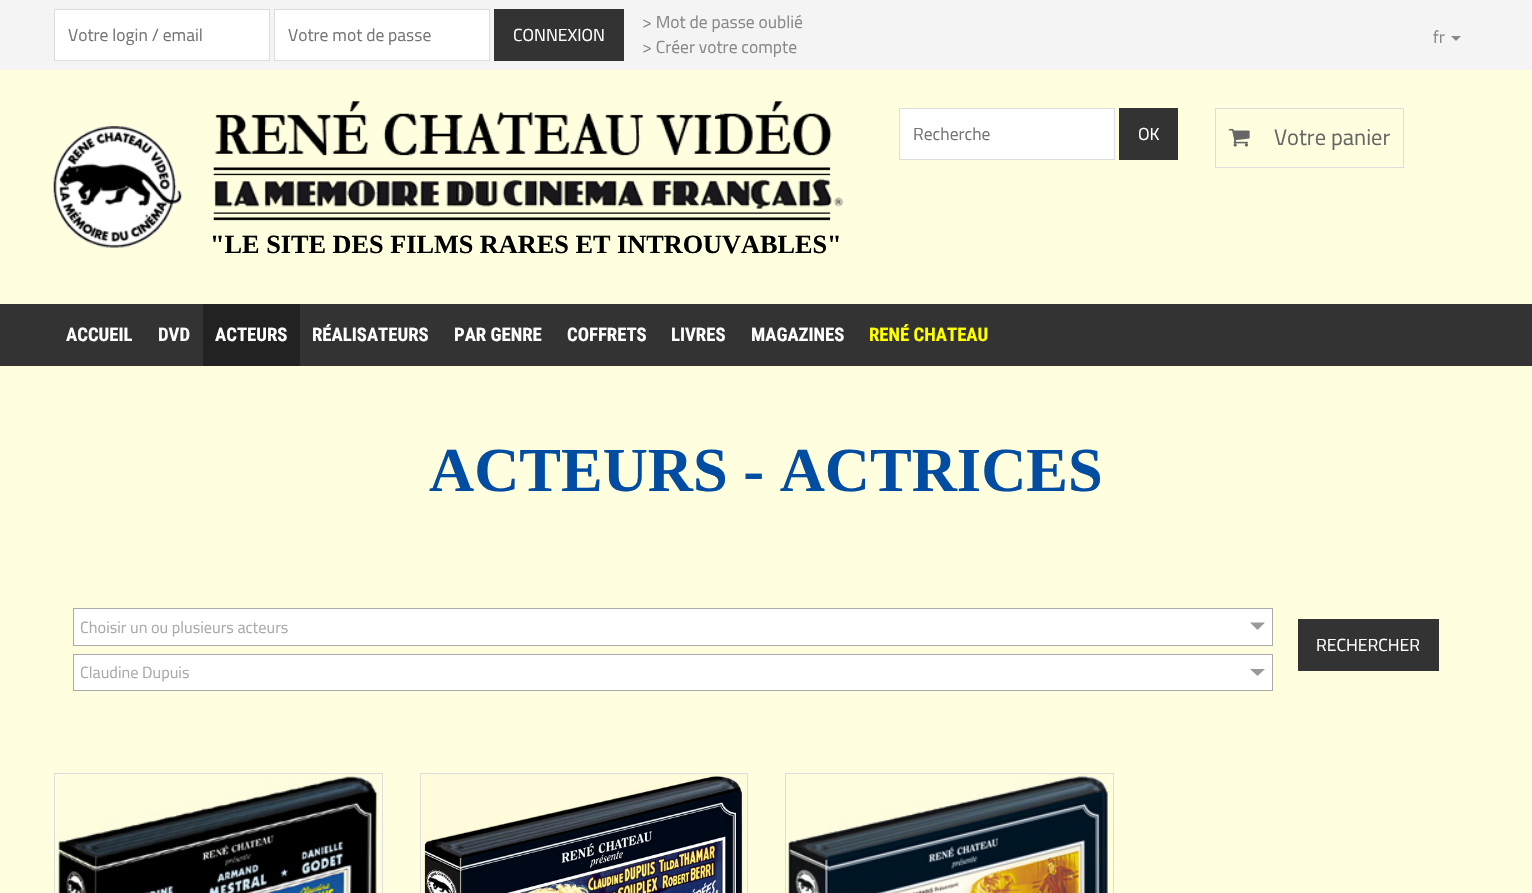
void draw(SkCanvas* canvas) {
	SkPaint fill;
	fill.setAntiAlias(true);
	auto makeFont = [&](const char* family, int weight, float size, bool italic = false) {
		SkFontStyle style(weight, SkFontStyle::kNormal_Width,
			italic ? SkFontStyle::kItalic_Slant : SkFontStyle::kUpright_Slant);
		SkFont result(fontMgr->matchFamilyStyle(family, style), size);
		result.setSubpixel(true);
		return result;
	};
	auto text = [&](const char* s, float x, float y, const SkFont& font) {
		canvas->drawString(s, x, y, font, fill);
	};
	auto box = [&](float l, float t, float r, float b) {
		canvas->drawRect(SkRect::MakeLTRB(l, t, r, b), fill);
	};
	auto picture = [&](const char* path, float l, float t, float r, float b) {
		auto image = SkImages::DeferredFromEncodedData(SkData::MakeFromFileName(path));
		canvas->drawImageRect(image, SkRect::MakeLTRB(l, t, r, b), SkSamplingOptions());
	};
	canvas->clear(0xFFFFFFE0);
	fill.setColor(0xFFF4F4F4);
	box(0, 0, 1532, 70);
	fill.setColor(0xFFFFFFFF);
	canvas->drawRect(SkRect::MakeLTRB(54.5f, 9.5f, 269.5f, 60.5f), fill);
	fill.setStyle(SkPaint::kStroke_Style);
	fill.setStrokeWidth(1);
	fill.setColor(0xFFDDDDDD);
	canvas->drawRect(SkRect::MakeLTRB(54.5f, 9.5f, 269.5f, 60.5f), fill);
	fill.setStyle(SkPaint::kFill_Style);
	fill.setColor(0xFFFFFFFF);
	canvas->drawRect(SkRect::MakeLTRB(274.5f, 9.5f, 489.5f, 60.5f), fill);
	fill.setStyle(SkPaint::kStroke_Style);
	fill.setColor(0xFFDDDDDD);
	canvas->drawRect(SkRect::MakeLTRB(274.5f, 9.5f, 489.5f, 60.5f), fill);
	fill.setStyle(SkPaint::kFill_Style);
	fill.setColor(0xFF333333);
	box(494, 9, 624, 61);
	fill.setColor(0xFF888888);
	canvas->drawPath(SkPathBuilder().moveTo(1451, 36).lineTo(1461, 36).lineTo(1456, 41).close().detach(), fill);
	fill.setColor(0xFFFFFFFF);
	canvas->drawRect(SkRect::MakeLTRB(899.5f, 108.5f, 1114.5f, 159.5f), fill);
	fill.setStyle(SkPaint::kStroke_Style);
	fill.setColor(0xFFDDDDDD);
	canvas->drawRect(SkRect::MakeLTRB(899.5f, 108.5f, 1114.5f, 159.5f), fill);
	fill.setStyle(SkPaint::kFill_Style);
	fill.setColor(0xFF333333);
	box(1119, 108, 1178, 160);
	fill.setStyle(SkPaint::kStroke_Style);
	fill.setColor(0xFFDDDDDD);
	canvas->drawRect(SkRect::MakeLTRB(1215.5f, 108.5f, 1403.5f, 167.5f), fill);
	picture("image0.png", 1228, 128, 1250, 147);
	picture("image1.png", 53, 126, 182, 248);
	picture("image2.png", 213, 101, 844, 221);
	fill.setStyle(SkPaint::kFill_Style);
	fill.setColor(0xFF333333);
	box(0, 304, 1532, 366);
	fill.setColor(0xFF222222);
	box(203, 304, 300, 366);
	fill.setColor(0xFFFFFFFF);
	canvas->drawRect(SkRect::MakeLTRB(73.5f, 608.5f, 1272.5f, 645.5f), fill);
	fill.setStyle(SkPaint::kStroke_Style);
	fill.setColor(0xFFAAAAAA);
	canvas->drawRect(SkRect::MakeLTRB(73.5f, 608.5f, 1272.5f, 645.5f), fill);
	fill.setStyle(SkPaint::kFill_Style);
	fill.setColor(0xFF999999);
	canvas->drawPath(SkPathBuilder().moveTo(1250, 622.5f).lineTo(1265, 622.5f).lineTo(1257.5f, 630).close().detach(), fill);
	fill.setColor(0xFF333333);
	box(1298, 619, 1439, 671);
	fill.setColor(0xFFFFFFFF);
	canvas->drawRect(SkRect::MakeLTRB(73.5f, 654.5f, 1272.5f, 690.5f), fill);
	fill.setStyle(SkPaint::kStroke_Style);
	fill.setColor(0xFFAAAAAA);
	canvas->drawRect(SkRect::MakeLTRB(73.5f, 654.5f, 1272.5f, 690.5f), fill);
	fill.setStyle(SkPaint::kFill_Style);
	fill.setColor(0xFF999999);
	canvas->drawPath(SkPathBuilder().moveTo(1250, 669).lineTo(1265, 669).lineTo(1257.5f, 676).close().detach(), fill);
	picture("image3.png", 55, 774, 380, 893);
	fill.setStyle(SkPaint::kStroke_Style);
	fill.setColor(0xFFDDDDDD);
	canvas->drawRect(SkRect::MakeLTRB(54.5f, 773.5f, 382.5f, 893.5f), fill);
	picture("image4.png", 421, 774, 746, 893);
	canvas->drawRect(SkRect::MakeLTRB(420.5f, 773.5f, 747.5f, 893.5f), fill);
	picture("image5.png", 788, 774, 1108, 893);
	canvas->drawRect(SkRect::MakeLTRB(785.5f, 773.5f, 1113.5f, 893.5f), fill);
	auto font1 = makeFont("Titillium Web", 400, 17.5f);
	fill.setStyle(SkPaint::kFill_Style);
	fill.setColor(0xFF757575);
	text("Votre login / email", 68, 41, font1);
	text("Votre mot de passe", 288, 41, font1);
	fill.setColor(0xFFFFFFFF);
	text("CONNEXION", 513, 41, font1);
	fill.setColor(0xFF888888);
	text("> Mot de passe oublié", 642, 28, font1);
	text("> Créer votre compte", 642, 53, font1);
	text("fr", 1433, 43, font1);
	fill.setColor(0xFF757575);
	text("Recherche", 913, 140, font1);
	fill.setColor(0xFFFFFFFF);
	text("OK", 1138, 140, font1);
	auto font2 = makeFont("Titillium Web", 400, 22.5f);
	fill.setColor(0xFF666666);
	text("Votre panier", 1274, 145, font2);
	auto font3 = makeFont("Liberation Serif", 700, 26.25f);
	fill.setColor(0xFF000000);
	text("\"LE SITE DES FILMS RARES ET INTROUVABLES\"", 210, 253, font3);
	auto font4 = makeFont("Roboto Condensed", 700, 18.75f);
	fill.setColor(0xFFFFFFFF);
	text("ACCUEIL", 66, 341, font4);
	text("DVD", 158, 341, font4);
	text("ACTEURS", 215, 341, font4);
	text("RÉALISATEURS", 312, 341, font4);
	text("PAR GENRE", 454, 341, font4);
	text("COFFRETS", 567, 341, font4);
	text("LIVRES", 671, 341, font4);
	text("MAGAZINES", 751, 341, font4);
	fill.setColor(0xFFFFFF00);
	text("RENÉ CHATEAU", 869, 341, font4);
	auto font5 = makeFont("Liberation Serif", 700, 62.5f);
	fill.setColor(0xFF024DA2);
	text("ACTEURS - ACTRICES", 429, 491, font5);
	auto font6 = makeFont("Titillium Web", 400, 16.25f);
	fill.setColor(0xFFAAAAAA);
	text("Choisir un ou plusieurs acteurs", 80, 633, font6);
	fill.setColor(0xFFFFFFFF);
	text("RECHERCHER", 1316, 651, font1);
	fill.setColor(0xFFAAAAAA);
	text("Claudine Dupuis", 80, 678, font6);
}
